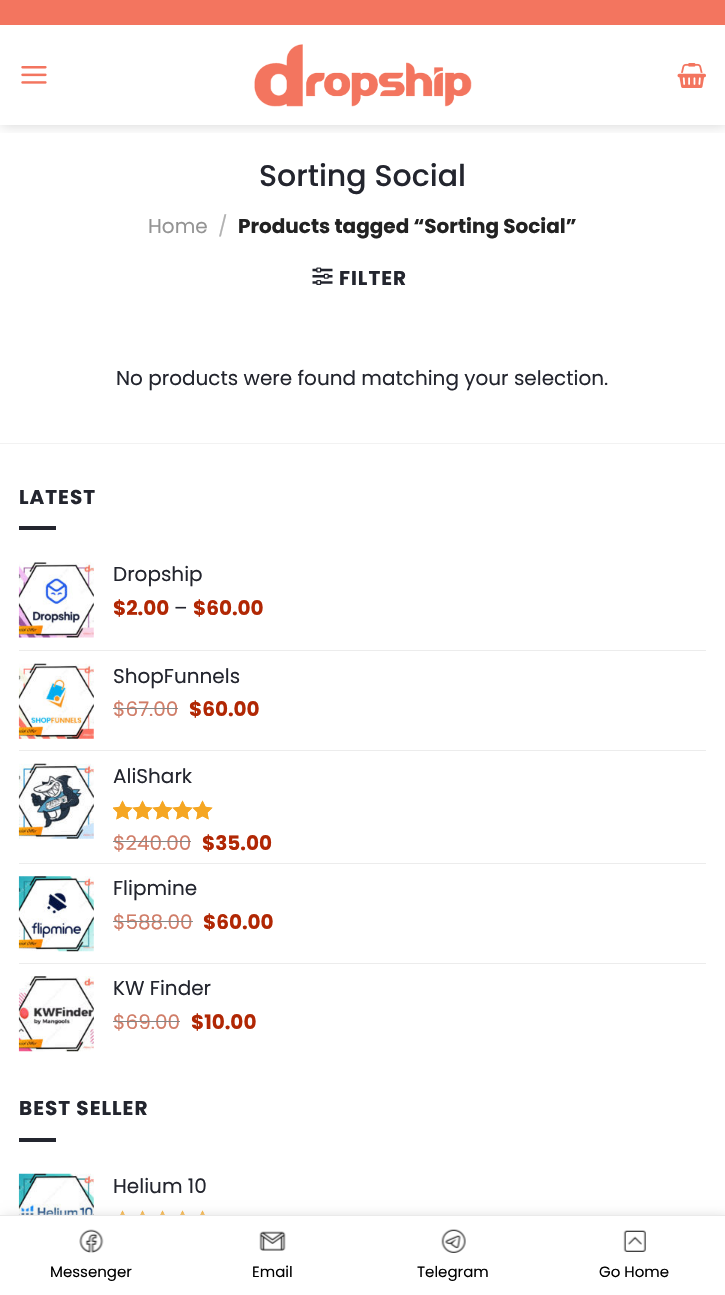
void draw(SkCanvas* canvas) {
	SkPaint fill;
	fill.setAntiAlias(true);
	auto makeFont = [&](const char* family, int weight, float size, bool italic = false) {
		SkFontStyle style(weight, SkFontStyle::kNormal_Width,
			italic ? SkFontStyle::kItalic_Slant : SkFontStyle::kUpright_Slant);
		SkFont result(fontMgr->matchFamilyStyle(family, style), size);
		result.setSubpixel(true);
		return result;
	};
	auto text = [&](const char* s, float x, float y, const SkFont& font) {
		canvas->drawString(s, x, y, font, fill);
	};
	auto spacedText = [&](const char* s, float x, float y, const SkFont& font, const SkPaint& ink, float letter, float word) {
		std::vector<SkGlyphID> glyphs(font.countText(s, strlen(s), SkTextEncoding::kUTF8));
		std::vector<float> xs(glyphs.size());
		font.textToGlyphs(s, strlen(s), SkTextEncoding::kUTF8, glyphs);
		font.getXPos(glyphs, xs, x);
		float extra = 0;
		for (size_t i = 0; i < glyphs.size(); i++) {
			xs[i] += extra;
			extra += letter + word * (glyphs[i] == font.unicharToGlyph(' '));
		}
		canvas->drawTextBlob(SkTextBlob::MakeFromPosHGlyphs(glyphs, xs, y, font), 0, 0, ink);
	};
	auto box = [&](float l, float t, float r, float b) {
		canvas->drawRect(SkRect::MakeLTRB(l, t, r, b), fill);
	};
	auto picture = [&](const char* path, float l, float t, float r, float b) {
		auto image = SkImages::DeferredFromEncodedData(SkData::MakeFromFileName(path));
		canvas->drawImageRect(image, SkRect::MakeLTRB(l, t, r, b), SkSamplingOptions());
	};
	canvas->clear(0xFFFFFFFF);
	canvas->save();
	canvas->clipRect(SkRect::MakeLTRB(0, 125, 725, 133));
	fill.setColor(0x26000000);
	fill.setMaskFilter(SkMaskFilter::MakeBlur(kNormal_SkBlurStyle, 6));
	canvas->drawRect(SkRect::MakeLTRB(1, 1, 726, 126), fill);
	fill.setMaskFilter(nullptr);
	canvas->restore();
	fill.setColor(0xFFF3755F);
	box(0, 0, 725, 25);
	picture("image0.png", 21, 66, 47, 84);
	picture("image1.png", 254, 44, 472, 107);
	picture("image2.png", 677, 63, 706, 88);
	picture("image3.png", 312, 267, 333, 285);
	fill.setColor(0xFFF2F2F2);
	box(0, 443, 725, 444);
	fill.setColor(0xFF23252E);
	box(19, 526, 56, 530);
	picture("image4.png", 18, 562, 94, 638);
	fill.setColor(0xFFECECEC);
	box(19, 650, 706, 651);
	picture("image5.png", 18, 663, 94, 739);
	box(19, 750, 706, 751);
	picture("image6.png", 18, 763, 94, 839);
	picture("image7.png", 113, 800, 213, 820);
	picture("image8.png", 113, 800, 213, 820);
	box(19, 863, 706, 864);
	picture("image9.png", 18, 876, 94, 952);
	box(19, 963, 706, 964);
	picture("image10.png", 18, 976, 94, 1052);
	fill.setColor(0xFF23252E);
	box(19, 1138, 56, 1142);
	picture("image11.png", 18, 1173, 94, 1215);
	picture("image12.png", 120, 1210, 205, 1215);
	picture("image13.png", 120, 1210, 205, 1215);
	fill.setColor(0xFFDEDEDE);
	fill.setMaskFilter(SkMaskFilter::MakeBlur(kNormal_SkBlurStyle, 5.5f));
	canvas->drawRect(SkRect::MakeLTRB(3, 1216, 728, 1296), fill);
	fill.setMaskFilter(nullptr);
	fill.setColor(0xFFFFFFFF);
	box(0, 1216, 725, 1295);
	fill.setColor(0xFFEAEAEA);
	box(0, 1215, 725, 1216);
	picture("image14.png", 79, 1229, 104, 1253);
	picture("image15.png", 259, 1231, 286, 1251);
	picture("image16.png", 441, 1229, 466, 1253);
	picture("image17.png", 623, 1230, 646, 1252);
	auto font1 = makeFont("Poppins", 500, 30);
	fill.setColor(0xFF23252E);
	text("Sorting Social", 259, 186, font1);
	auto font2 = makeFont("Poppins", 400, 20);
	fill.setColor(0xFF949494);
	text("Home", 148, 233, font2);
	fill.setColor(0xFFB2B2B2);
	text("/", 218, 233, font2);
	auto font3 = makeFont("Poppins", 700, 20);
	fill.setColor(0xFF222222);
	text("Products tagged “Sorting Social”", 238, 233, font3);
	fill.setColor(0xFF23252E);
	spacedText("FILTER", 339, 285, font3, fill, 1, 0);
	text("No products were found matching your selection.", 116, 385, font2);
	spacedText("LATEST", 19, 504, font3, fill, 1, 0);
	text("Dropship", 113, 581, font2);
	fill.setColor(0xFFB12704);
	text("$2.00", 113, 615, font3);
	fill.setColor(0xFF23252E);
	text("–", 174, 615, font2);
	fill.setColor(0xFFB12704);
	text("$60.00", 193, 615, font3);
	fill.setColor(0xFF23252E);
	text("ShopFunnels", 113, 683, font2);
	fill.setColor(0xFFD07D68);
	text("$67.00", 113, 716, font2);
	fill.setColor(0xFF868686);
	box(113, 708, 178, 709);
	fill.setColor(0xFFB12704);
	text("$60.00", 189, 716, font3);
	fill.setColor(0xFF23252E);
	text("AliShark", 113, 783, font2);
	fill.setColor(0xFFD07D68);
	text("$240.00", 113, 850, font2);
	fill.setColor(0xFF868686);
	box(113, 841, 191, 842);
	fill.setColor(0xFFB12704);
	text("$35.00", 202, 850, font3);
	fill.setColor(0xFF23252E);
	text("Flipmine", 113, 895, font2);
	fill.setColor(0xFFD07D68);
	text("$588.00", 113, 929, font2);
	fill.setColor(0xFF868686);
	box(113, 921, 193, 922);
	fill.setColor(0xFFB12704);
	text("$60.00", 203, 929, font3);
	fill.setColor(0xFF23252E);
	text("KW Finder", 113, 995, font2);
	fill.setColor(0xFFD07D68);
	text("$69.00", 113, 1029, font2);
	fill.setColor(0xFF868686);
	box(113, 1021, 180, 1022);
	fill.setColor(0xFFB12704);
	text("$10.00", 191, 1029, font3);
	fill.setColor(0xFF23252E);
	spacedText("BEST SELLER", 19, 1115, font3, fill, 1, 0);
	text("Helium 10", 113, 1193, font2);
	auto font4 = makeFont("Poppins", 400, 15);
	fill.setColor(0xFF000000);
	text("Messenger", 50, 1277, font4);
	text("Email", 252, 1277, font4);
	text("Telegram", 417, 1277, font4);
	text("Go Home", 599, 1277, font4);
}
